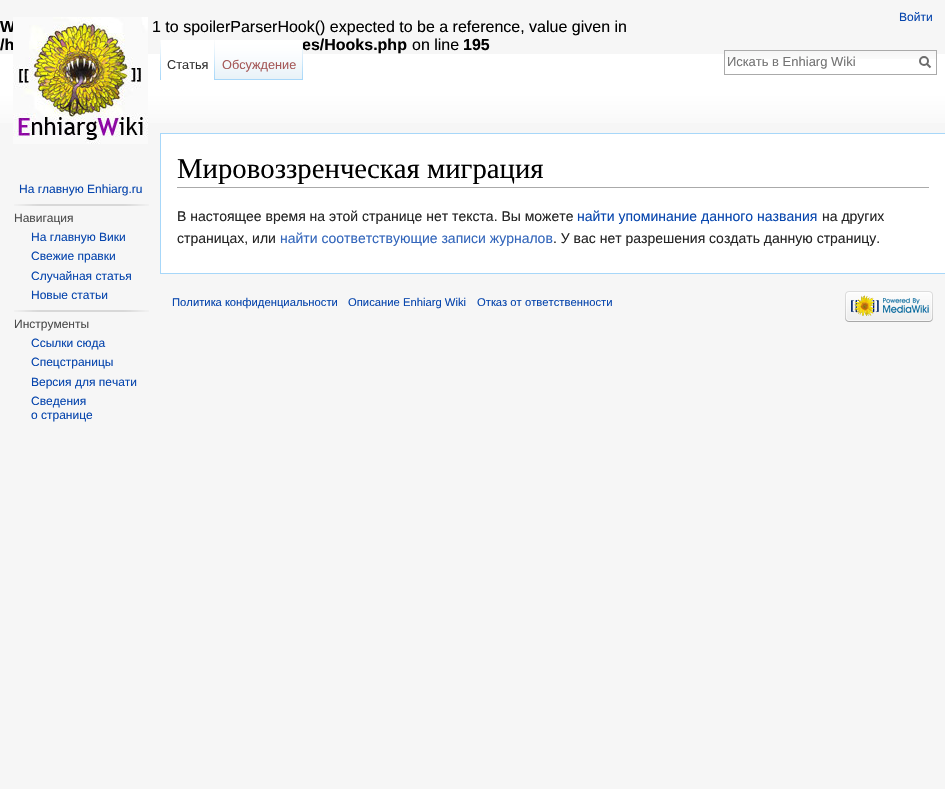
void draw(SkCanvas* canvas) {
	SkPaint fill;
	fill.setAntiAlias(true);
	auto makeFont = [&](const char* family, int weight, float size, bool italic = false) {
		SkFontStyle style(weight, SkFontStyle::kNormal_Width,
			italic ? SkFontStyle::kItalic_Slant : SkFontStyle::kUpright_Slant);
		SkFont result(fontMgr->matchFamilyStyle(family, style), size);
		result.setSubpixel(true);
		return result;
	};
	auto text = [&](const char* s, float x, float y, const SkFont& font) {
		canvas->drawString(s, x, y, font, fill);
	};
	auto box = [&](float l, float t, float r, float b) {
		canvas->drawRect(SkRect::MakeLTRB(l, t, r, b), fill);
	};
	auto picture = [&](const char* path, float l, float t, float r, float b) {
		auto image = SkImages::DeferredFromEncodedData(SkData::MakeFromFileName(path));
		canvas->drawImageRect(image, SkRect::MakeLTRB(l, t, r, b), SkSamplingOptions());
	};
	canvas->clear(0xFFF6F6F6);
	{
		const SkColor colors[] = {0xFFFFFFFF, 0xFFF6F6F6};
		const float stops[] = {0.5f, 1};
		const SkPoint ends[] = {{473, 54}, {473, 134}};
		fill.setShader(SkGradientShader::MakeLinear(ends, colors, stops, 2, SkTileMode::kClamp));
		fill.setAlpha(255);
	}
	box(0, 54, 945, 123);
	picture("image0.png", 160, 40, 161, 80);
	fill.setShader(nullptr);
	fill.setColor(0xFFFFFFFF);
	box(161, 40, 214, 54);
	picture("image1.png", 214, 40, 215, 80);
	picture("image4.png", 725, 51, 936, 59);
	fill.setStyle(SkPaint::kStroke_Style);
	fill.setStrokeWidth(1);
	fill.setColor(0xFFAAAAAA);
	canvas->drawRect(SkRect::MakeLTRB(724.5f, 50.5f, 936.5f, 74.5f), fill);
	fill.setStrokeWidth(2);
	fill.setColor(0xFF6C6C6C);
	canvas->drawPath(SkPathBuilder().moveTo(930.5f, 67.5f).lineTo(926.5f, 63.5f).detach(), fill);
	canvas->drawCircle(924, 61, 4, fill);
	picture("image6.png", 14, 204, 149, 206);
	picture("image6.png", 14, 310, 149, 312);
	fill.setStyle(SkPaint::kFill_Style);
	fill.setColor(0xFFFFFFFF);
	box(161, 134, 945, 273);
	fill.setColor(0xFFA7D7F9);
	box(160, 133, 945, 134);
	box(160, 273, 945, 274);
	box(160, 133, 161, 274);
	fill.setColor(0xFFAAAAAA);
	box(177, 187, 929, 188);
	picture("image7.png", 845, 291, 933, 322);
	auto font1 = makeFont("Liberation Sans", 400, 12);
	fill.setColor(0xFF0645AD);
	text("Войти", 899, 21, font1);
	auto font2 = makeFont("Liberation Sans", 400, 12.75f);
	fill.setColor(0xFF333333);
	text("Статья", 167, 69, font2);
	auto font3 = makeFont("Liberation Sans", 400, 13);
	fill.setColor(0xFF757575);
	text("Искать в Enhiarg Wiki", 727, 66, font3);
	fill.setColor(0xFF0645AD);
	text("На главную Enhiarg.ru", 19, 193, font1);
	fill.setColor(0xFF4D4D4D);
	text("Навигация", 14, 222, font1);
	fill.setColor(0xFF0645AD);
	text("На главную Вики", 31, 241, font1);
	text("Свежие правки", 31, 260, font1);
	text("Случайная статья", 31, 280, font1);
	text("Новые статьи", 31, 299, font1);
	fill.setColor(0xFF4D4D4D);
	text("Инструменты", 14, 328, font1);
	fill.setColor(0xFF0645AD);
	text("Ссылки сюда", 31, 347, font1);
	text("Спецстраницы", 31, 366, font1);
	text("Версия для печати", 31, 386, font1);
	text("Сведения", 31, 405, font1);
	text("о странице", 31, 419, font1);
	auto font4 = makeFont("Liberation Sans", 700, 16);
	fill.setColor(0xFF000000);
	text("W", 0, 32, font4);
	auto font5 = makeFont("Liberation Sans", 400, 16);
	text("1 to spoilerParserHook() expected to be a reference, value given in", 152, 32, font5);
	text("/h", 0, 50, font4);
	picture("image5.png", 13, 17, 148, 144);
	text("es/Hooks.php", 302, 50, font4);
	picture("image2.png", 215, 40, 303, 80);
	fill.setColor(0xFFA55858);
	text("Обсуждение", 222, 69, font2);
	picture("image3.png", 302, 40, 303, 79);
	fill.setColor(0xFF000000);
	text("on line", 412, 50, font5);
	text("195", 463, 50, font4);
	auto font6 = makeFont("Liberation Serif", 400, 28.75f);
	text("Мировоззренческая миграция", 177, 178, font6);
	auto font7 = makeFont("Liberation Sans", 400, 14);
	fill.setColor(0xFF252525);
	text("В настоящее время на этой странице нет текста. Вы можете", 177, 221, font7);
	fill.setColor(0xFF0645AD);
	text("найти упоминание данного названия", 577, 221, font7);
	fill.setColor(0xFF252525);
	text("на других", 822, 221, font7);
	text("страницах, или", 177, 243, font7);
	fill.setColor(0xFF3366BB);
	text("найти соответствующие записи журналов", 280, 243, font7);
	fill.setColor(0xFF252525);
	text(". У вас нет разрешения создать данную страницу.", 553, 243, font7);
	auto font8 = makeFont("Liberation Sans", 400, 11.25f);
	fill.setColor(0xFF0645AD);
	text("Политика конфиденциальности", 172, 306, font8);
	text("Описание Enhiarg Wiki", 348, 306, font8);
	text("Отказ от ответственности", 477, 306, font8);
}
